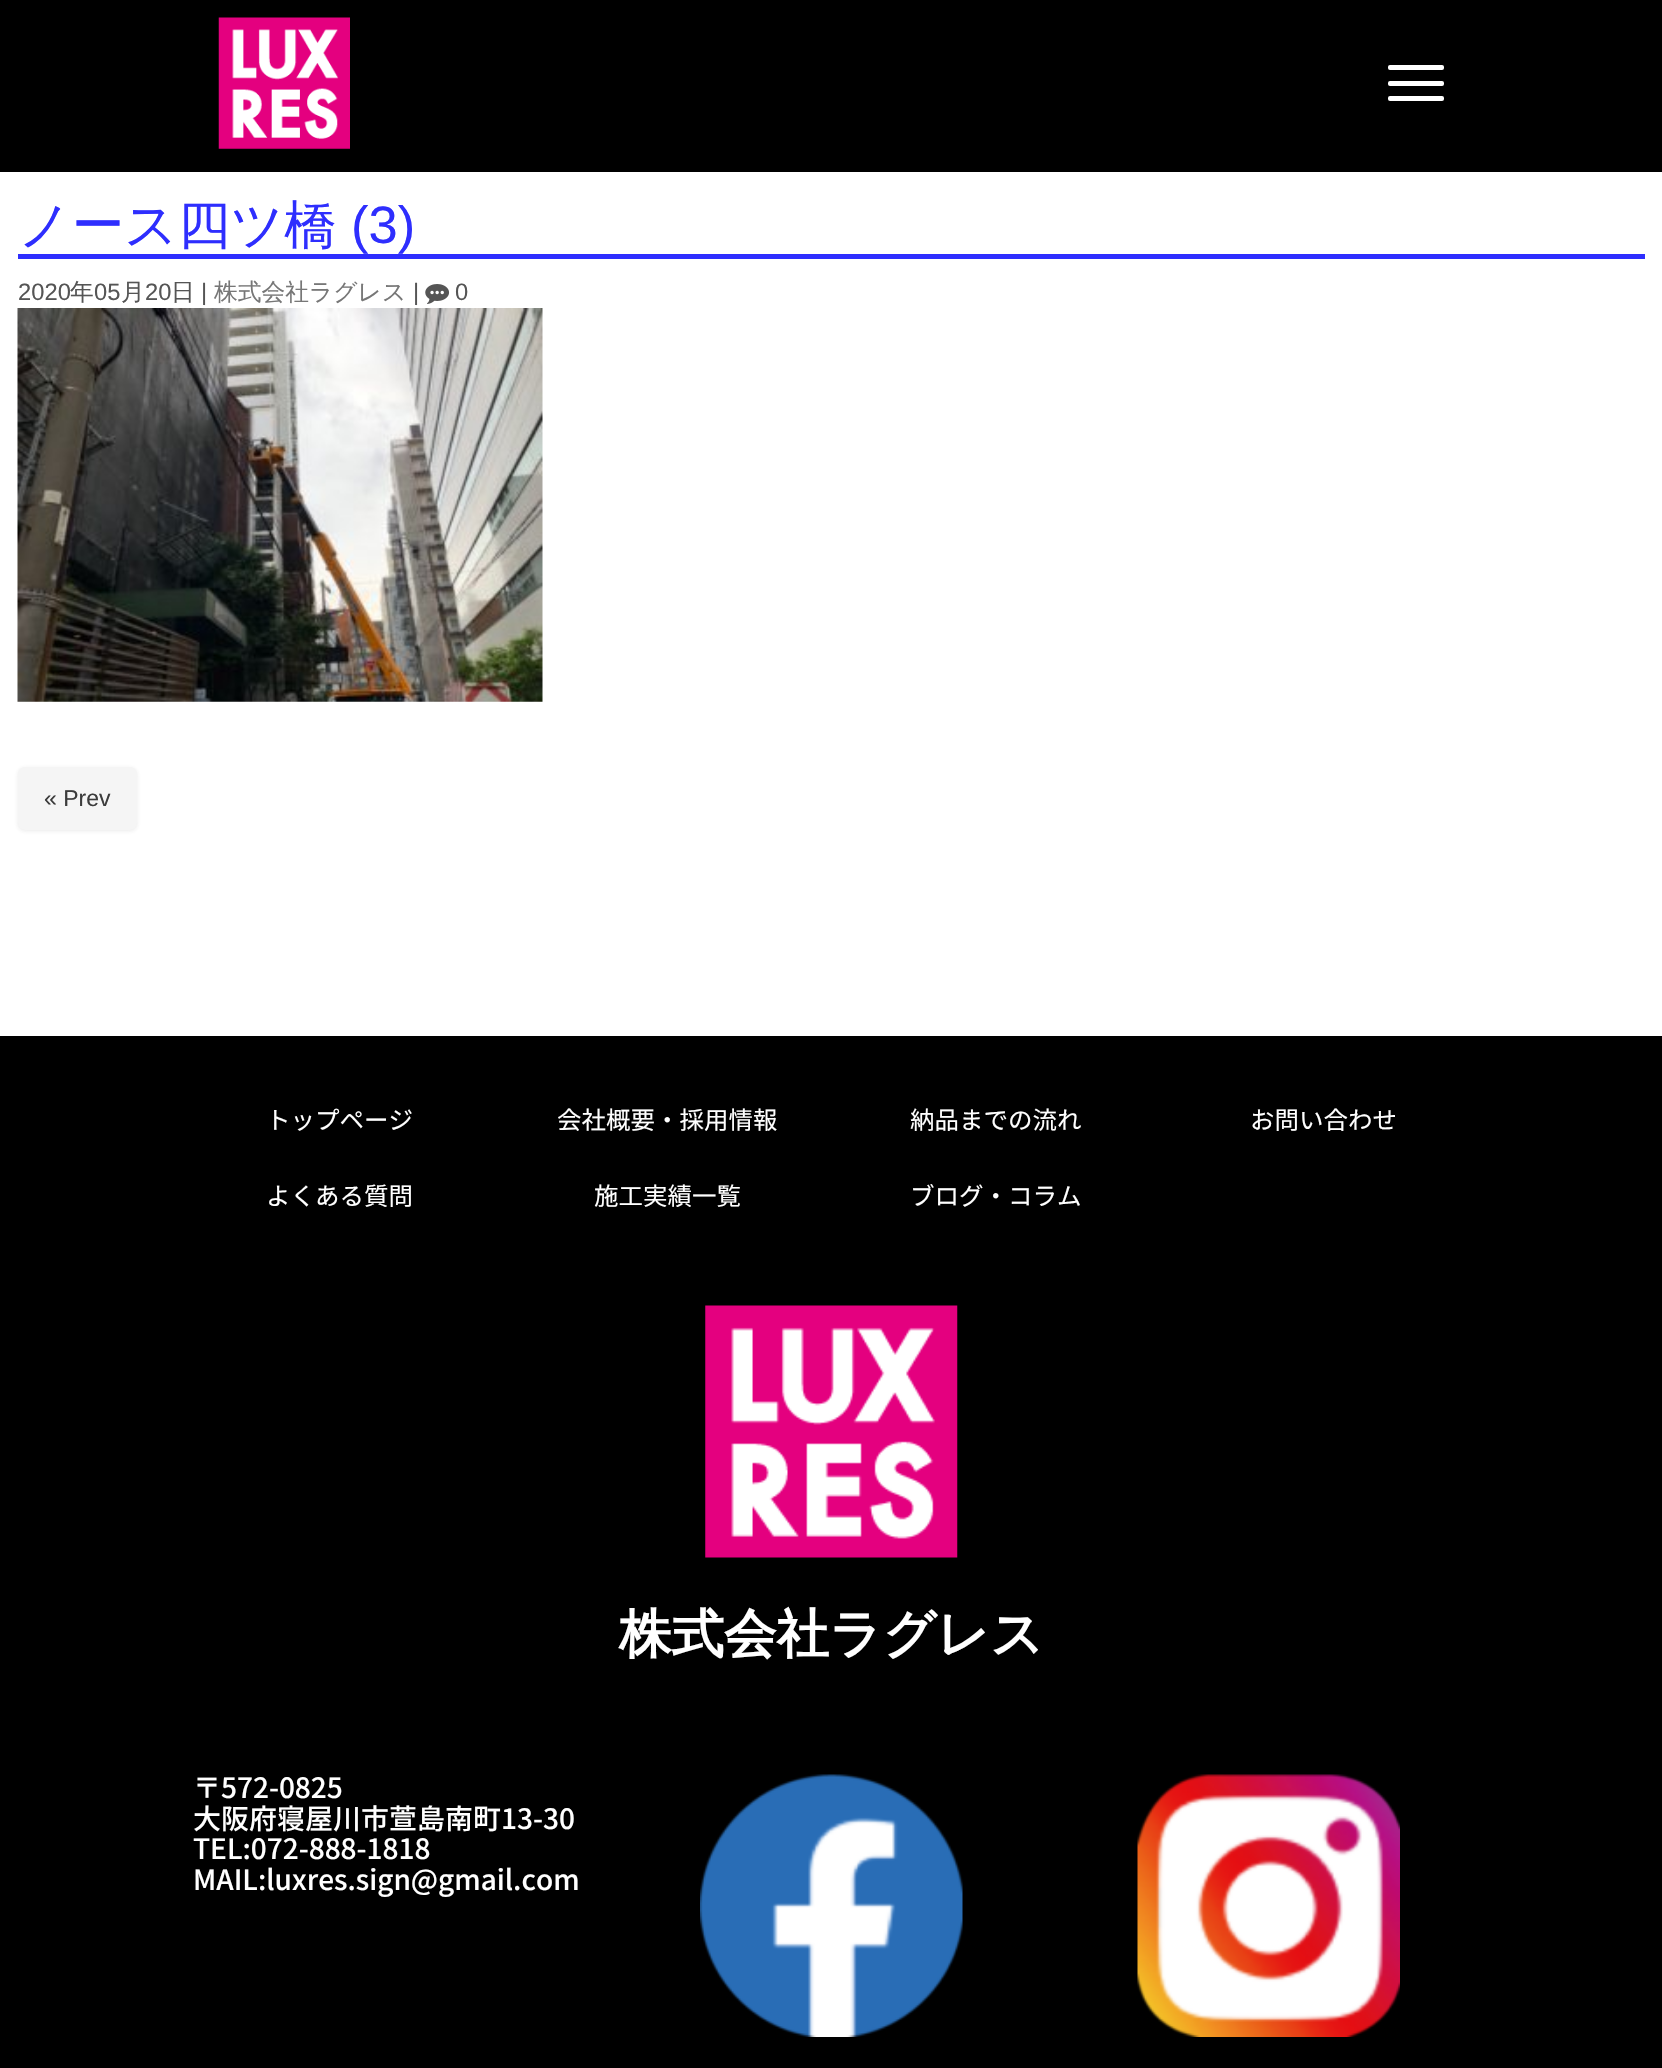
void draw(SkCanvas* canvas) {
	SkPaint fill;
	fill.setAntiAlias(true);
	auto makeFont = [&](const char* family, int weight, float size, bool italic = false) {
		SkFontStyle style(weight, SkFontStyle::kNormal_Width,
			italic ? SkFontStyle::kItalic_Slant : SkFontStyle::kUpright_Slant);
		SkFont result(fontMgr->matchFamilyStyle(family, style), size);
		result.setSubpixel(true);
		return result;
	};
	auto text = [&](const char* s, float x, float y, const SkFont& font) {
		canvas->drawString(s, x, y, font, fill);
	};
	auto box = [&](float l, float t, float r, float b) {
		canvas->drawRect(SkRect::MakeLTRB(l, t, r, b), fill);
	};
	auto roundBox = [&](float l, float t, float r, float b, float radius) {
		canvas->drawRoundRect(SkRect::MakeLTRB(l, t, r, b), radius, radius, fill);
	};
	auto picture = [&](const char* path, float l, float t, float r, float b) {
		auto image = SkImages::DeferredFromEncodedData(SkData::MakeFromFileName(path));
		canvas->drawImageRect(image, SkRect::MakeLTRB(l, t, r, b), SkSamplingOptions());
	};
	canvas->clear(0xFFFFFFFF);
	fill.setColor(0xFF000000);
	box(0, 0, 1662, 172);
	picture("image0.png", 218, 17, 350, 149);
	fill.setColor(0xFFFFFFFF);
	roundBox(1388, 65, 1444, 70, 2);
	roundBox(1388, 81, 1444, 86, 2);
	roundBox(1388, 96, 1444, 101, 2);
	fill.setColor(0xFF2E2EFE);
	box(18, 254, 1645, 259);
	picture("image1.png", 425, 284, 450, 304);
	picture("image2.png", 17, 308, 543, 702);
	fill.setColor(0x1A323232);
	fill.setMaskFilter(SkMaskFilter::MakeBlur(kNormal_SkBlurStyle, 2));
	canvas->drawRoundRect(SkRect::MakeLTRB(18, 768, 137, 831), 7, 7, fill);
	fill.setMaskFilter(nullptr);
	fill.setColor(0xFFF5F5F5);
	roundBox(18, 767, 137, 830, 7);
	fill.setColor(0xFF000000);
	box(0, 1036, 1662, 2068);
	picture("image3.png", 705, 1305, 958, 1558);
	picture("image4.png", 700, 1774, 963, 2037);
	picture("image5.png", 1137, 1774, 1400, 2037);
	auto font1 = makeFont("WenQuanYi Zen Hei", 500, 52.5f);
	fill.setColor(0xFF2E2EFE);
	text("ノース四ツ橋", 18, 243, font1);
	auto font2 = makeFont("Liberation Sans", 400, 52.5f);
	text("(3)", 351, 243, font2);
	auto font3 = makeFont("Liberation Sans", 400, 23.75f);
	fill.setColor(0xFF555555);
	text("2020", 18, 300, font3);
	auto font4 = makeFont("WenQuanYi Zen Hei", 500, 23.75f);
	text("年", 70, 300, font4);
	text("05", 94, 300, font3);
	text("月", 121, 300, font4);
	text("20", 145, 300, font3);
	text("日", 171, 300, font4);
	text("|", 201, 300, font3);
	fill.setColor(0xFF777777);
	text("株式会社ラグレス", 214, 300, font4);
	fill.setColor(0xFF555555);
	text("|", 413, 300, font3);
	text("0", 455, 300, font3);
	auto font5 = makeFont("Liberation Sans", 400, 23);
	fill.setColor(0xFF3C3C3C);
	text("« Prev", 44, 806, font5);
	auto font6 = makeFont("Noto Sans JP", 400, 24.5f);
	fill.setColor(0xFFFFFFFF);
	text("トップページ", 266, 1129, font6);
	text("よくある質問", 266, 1205, font6);
	text("会社概要・採用情報", 557, 1129, font6);
	text("施工実績一覧", 594, 1205, font6);
	text("納品までの流れ", 910, 1129, font6);
	text("ブログ・コラム", 910, 1205, font6);
	text("お問い合わせ", 1250, 1129, font6);
	auto font7 = makeFont("WenQuanYi Zen Hei", 700, 52.5f);
	text("株式会社ラグレス", 619, 1652, font7);
	auto font8 = makeFont("Noto Sans JP", 500, 28);
	text("〒572-0825", 193, 1798, font8);
	text("大阪府寝屋川市萱島南町13-30", 193, 1829, font8);
	text("TEL:072-888-1818", 193, 1859, font8);
	text("MAIL:luxres.sign@gmail.com", 193, 1890, font8);
}
